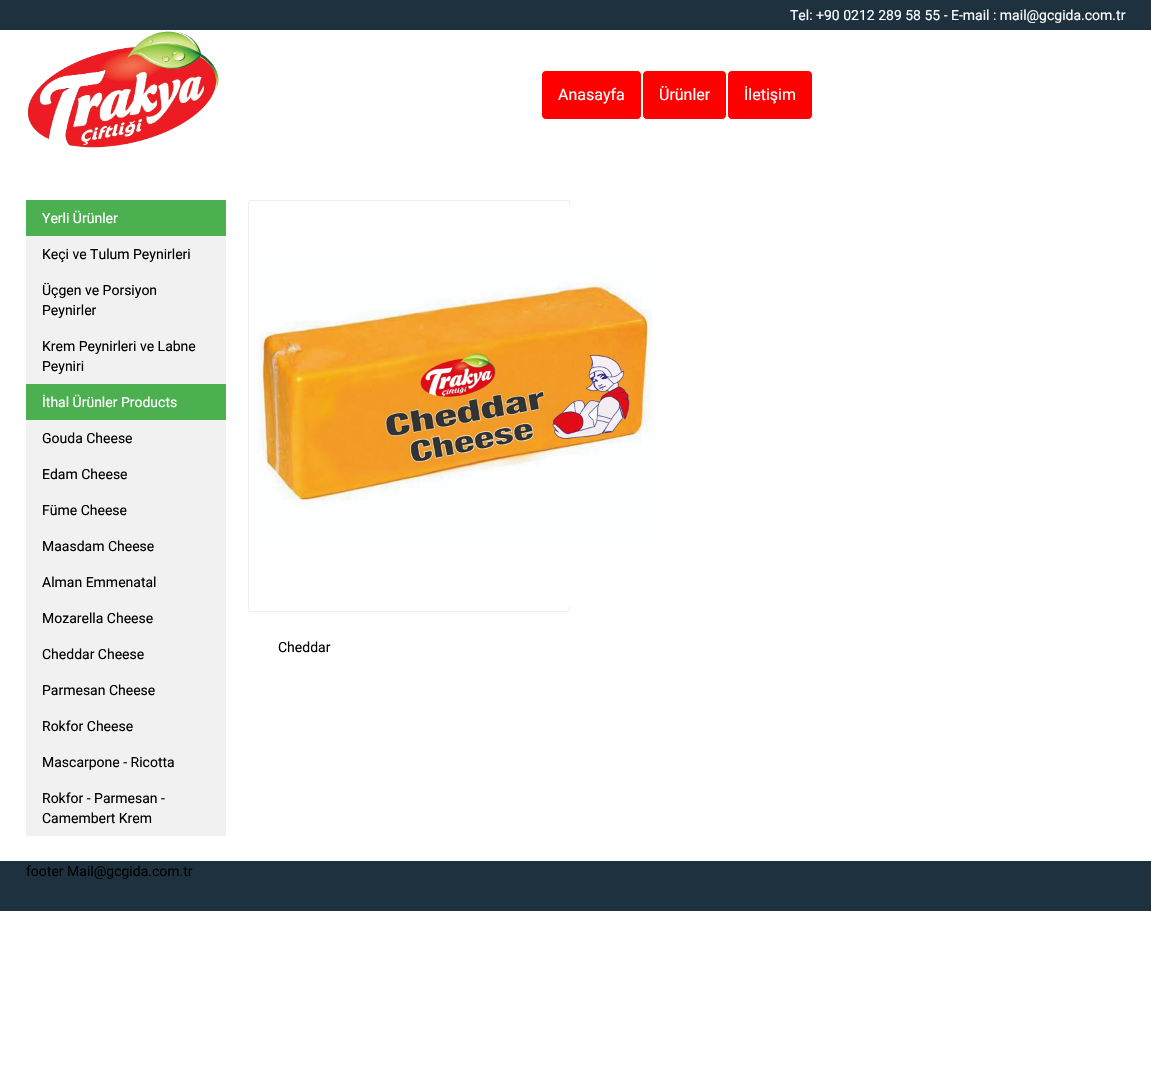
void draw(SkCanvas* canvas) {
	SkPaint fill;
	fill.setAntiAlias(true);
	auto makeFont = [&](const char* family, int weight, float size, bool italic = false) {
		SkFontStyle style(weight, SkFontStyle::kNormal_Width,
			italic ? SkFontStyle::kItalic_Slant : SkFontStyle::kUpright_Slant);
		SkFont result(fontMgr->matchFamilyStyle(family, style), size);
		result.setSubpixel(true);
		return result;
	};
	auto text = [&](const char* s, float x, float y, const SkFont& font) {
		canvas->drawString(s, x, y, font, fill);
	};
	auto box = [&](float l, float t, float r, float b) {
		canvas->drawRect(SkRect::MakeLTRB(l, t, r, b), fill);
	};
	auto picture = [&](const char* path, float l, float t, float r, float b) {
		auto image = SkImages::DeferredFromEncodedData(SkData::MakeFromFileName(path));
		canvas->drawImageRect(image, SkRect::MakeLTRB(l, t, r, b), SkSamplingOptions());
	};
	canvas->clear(0xFFFFFFFF);
	fill.setColor(0xFF1E313F);
	box(0, 0, 1151, 30);
	picture("image0.png", 28, 31, 219, 148);
	fill.setColor(0xFFFF0000);
	canvas->drawRoundRect(SkRect::MakeLTRB(541.5f, 70.5f, 641.5f, 119.5f), 4.5f, 4.5f, fill);
	fill.setStyle(SkPaint::kStroke_Style);
	fill.setStrokeWidth(1);
	fill.setColor(0xFFFFFFFF);
	canvas->drawRoundRect(SkRect::MakeLTRB(541.5f, 70.5f, 641.5f, 119.5f), 4.5f, 4.5f, fill);
	fill.setStyle(SkPaint::kFill_Style);
	fill.setColor(0xFFFF0000);
	canvas->drawRoundRect(SkRect::MakeLTRB(642.5f, 70.5f, 726.5f, 119.5f), 4.5f, 4.5f, fill);
	fill.setStyle(SkPaint::kStroke_Style);
	fill.setColor(0xFFFFFFFF);
	canvas->drawRoundRect(SkRect::MakeLTRB(642.5f, 70.5f, 726.5f, 119.5f), 4.5f, 4.5f, fill);
	fill.setStyle(SkPaint::kFill_Style);
	fill.setColor(0xFFFF0000);
	canvas->drawRoundRect(SkRect::MakeLTRB(727.5f, 70.5f, 812.5f, 119.5f), 4.5f, 4.5f, fill);
	fill.setStyle(SkPaint::kStroke_Style);
	fill.setColor(0xFFFFFFFF);
	canvas->drawRoundRect(SkRect::MakeLTRB(727.5f, 70.5f, 812.5f, 119.5f), 4.5f, 4.5f, fill);
	fill.setStyle(SkPaint::kFill_Style);
	fill.setColor(0xFFF1F1F1);
	box(26, 236, 226, 384);
	fill.setColor(0xFF4CAF50);
	box(26, 200, 226, 236);
	fill.setColor(0xFFF1F1F1);
	box(26, 420, 226, 836);
	fill.setColor(0xFF4CAF50);
	box(26, 384, 226, 420);
	fill.setStyle(SkPaint::kStroke_Style);
	fill.setColor(0xFFEEEEF2);
	canvas->drawRoundRect(SkRect::MakeLTRB(248.5f, 200.5f, 569.5f, 611.5f), 2.5f, 2.5f, fill);
	picture("image1.png", 256, 206, 652, 606);
	fill.setStyle(SkPaint::kFill_Style);
	fill.setColor(0xFF1E313F);
	box(0, 861, 1151, 911);
	auto font1 = makeFont("Roboto", 400, 14);
	fill.setColor(0xFFFFFFFF);
	text("Tel: +90 0212 289 58 55 - E-mail : mail@gcgida.com.tr", 790, 20, font1);
	auto font2 = makeFont("Roboto", 400, 16);
	text("Anasayfa", 558, 100, font2);
	text("Ürünler", 659, 100, font2);
	text("İletişim", 744, 100, font2);
	text("Yerli Ürünler", 42, 223, font1);
	fill.setColor(0xFF000000);
	text("Keçi ve Tulum Peynirleri", 42, 259, font1);
	text("Üçgen ve Porsiyon", 42, 295, font1);
	text("Peynirler", 42, 315, font1);
	text("Krem Peynirleri ve Labne", 42, 351, font1);
	text("Peyniri", 42, 371, font1);
	fill.setColor(0xFFFFFFFF);
	text("İthal Ürünler Products", 42, 407, font1);
	fill.setColor(0xFF000000);
	text("Gouda Cheese", 42, 443, font1);
	text("Edam Cheese", 42, 479, font1);
	text("Füme Cheese", 42, 515, font1);
	text("Maasdam Cheese", 42, 551, font1);
	text("Alman Emmenatal", 42, 587, font1);
	text("Mozarella Cheese", 42, 623, font1);
	text("Cheddar Cheese", 42, 659, font1);
	text("Parmesan Cheese", 42, 695, font1);
	text("Rokfor Cheese", 42, 731, font1);
	text("Mascarpone - Ricotta", 42, 767, font1);
	text("Rokfor - Parmesan -", 42, 803, font1);
	text("Camembert Krem", 42, 823, font1);
	text("Cheddar", 278, 652, font1);
	text("footer Mail@gcgida.com.tr", 26, 876, font1);
}
